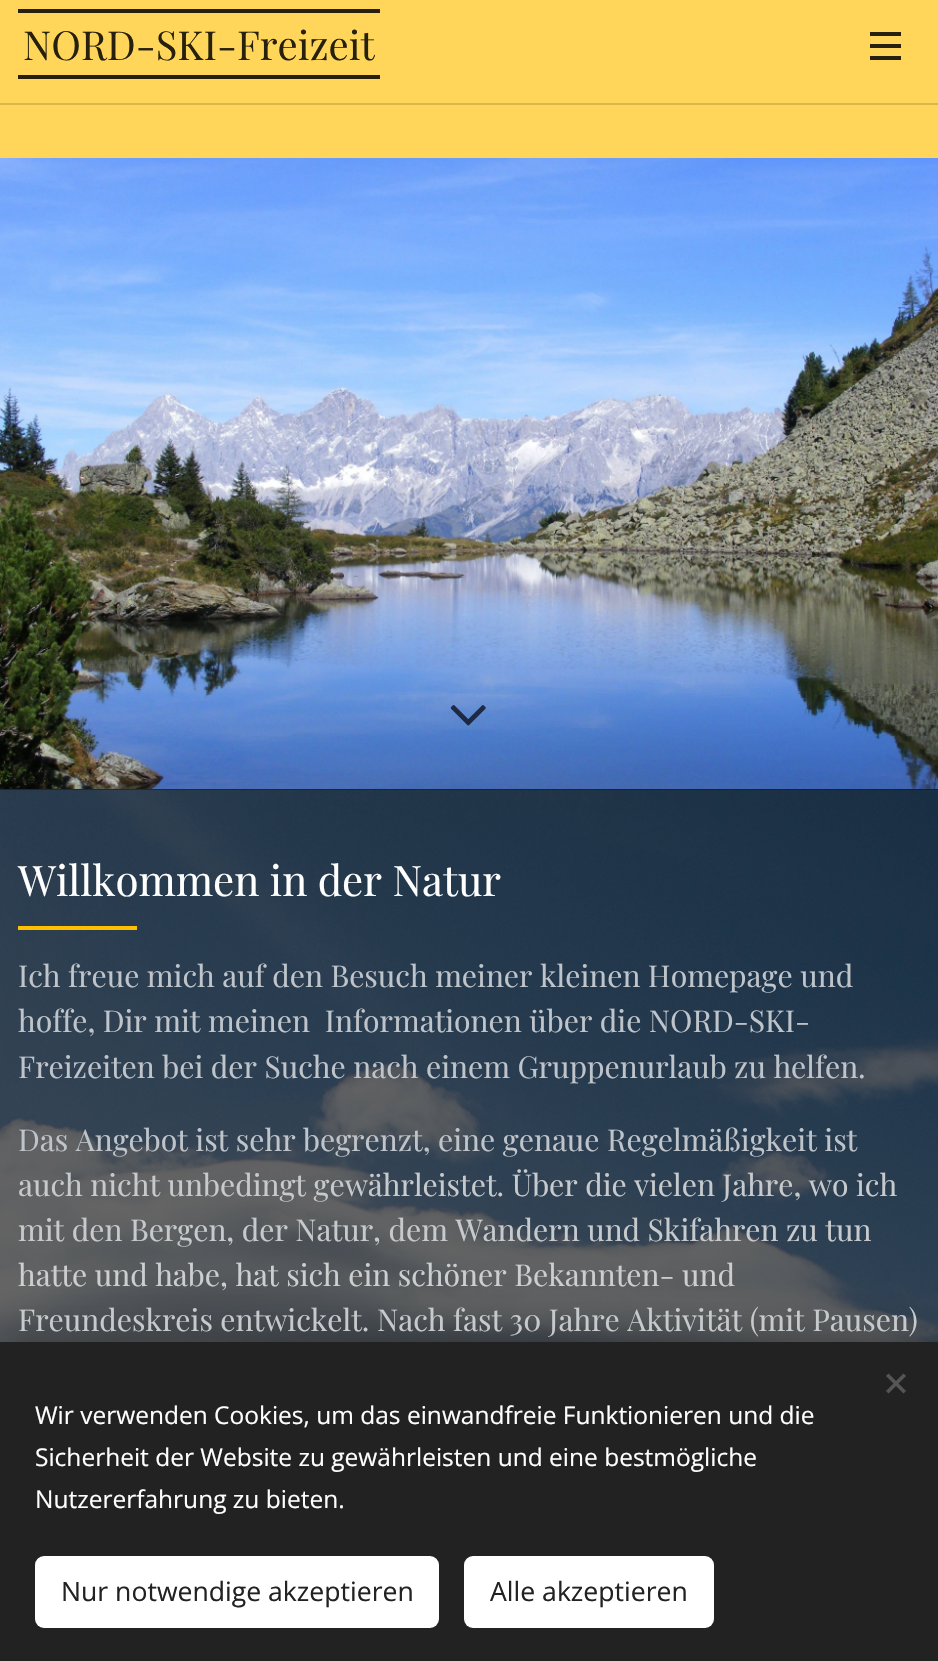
void draw(SkCanvas* canvas) {
	SkPaint fill;
	fill.setAntiAlias(true);
	auto makeFont = [&](const char* family, int weight, float size, bool italic = false) {
		SkFontStyle style(weight, SkFontStyle::kNormal_Width,
			italic ? SkFontStyle::kItalic_Slant : SkFontStyle::kUpright_Slant);
		SkFont result(fontMgr->matchFamilyStyle(family, style), size);
		result.setSubpixel(true);
		return result;
	};
	auto text = [&](const char* s, float x, float y, const SkFont& font) {
		canvas->drawString(s, x, y, font, fill);
	};
	auto box = [&](float l, float t, float r, float b) {
		canvas->drawRect(SkRect::MakeLTRB(l, t, r, b), fill);
	};
	auto roundBox = [&](float l, float t, float r, float b, float radius) {
		canvas->drawRoundRect(SkRect::MakeLTRB(l, t, r, b), radius, radius, fill);
	};
	auto picture = [&](const char* path, float l, float t, float r, float b) {
		auto image = SkImages::DeferredFromEncodedData(SkData::MakeFromFileName(path));
		canvas->drawImageRect(image, SkRect::MakeLTRB(l, t, r, b), SkSamplingOptions());
	};
	canvas->clear(0xFFFFFFFF);
	fill.setColor(0xFFFFD659);
	box(0, 0, 938, 158);
	fill.setColor(0xFFD9B64C);
	box(0, 103, 938, 105);
	fill.setColor(0xFF26200D);
	box(18, 9, 380, 13);
	box(18, 75, 380, 79);
	box(870, 44, 901, 48);
	box(870, 32, 901, 36);
	box(870, 56, 901, 60);
	picture("image0.png", 0, 158, 938, 789);
	picture("image1.png", 450, 705, 486, 726);
	fill.setColor(0xFF272727);
	box(0, 789, 938, 790);
	picture("image2.png", 0, 789, 938, 1342);
	fill.setColor(0x99000000);
	box(0, 789, 938, 1342);
	fill.setColor(0xFFFFC000);
	box(18, 926, 137, 930);
	fill.setColor(0x54000000);
	fill.setMaskFilter(SkMaskFilter::MakeBlur(kNormal_SkBlurStyle, 22));
	canvas->drawRect(SkRect::MakeLTRB(0, 1342, 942, 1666), fill);
	fill.setMaskFilter(nullptr);
	fill.setColor(0xFF222222);
	box(0, 1342, 938, 1661);
	fill.setColor(0xFF555555);
	canvas->drawPath(SkPathBuilder().moveTo(886, 1391).lineTo(903.5f, 1373.5f).lineTo(906, 1376).lineTo(888.5f, 1393.5f).close().detach(), fill);
	canvas->drawPath(SkPathBuilder().moveTo(888.5f, 1373.5f).lineTo(906, 1391).lineTo(903.5f, 1393.5f).lineTo(886, 1376).close().detach(), fill);
	fill.setColor(0xFFFFFFFF);
	roundBox(35, 1556, 439, 1628, 9);
	roundBox(464, 1556, 714, 1628, 9);
	auto font1 = makeFont("Playfair Display", 400, 40);
	fill.setColor(0xFF26200D);
	text("NORD-SKI-Freizeit", 23, 60, font1);
	auto font2 = makeFont("Playfair Display", 400, 42);
	fill.setColor(0xFFFFFFFF);
	text("Willkommen in der Natur", 18, 896, font2);
	auto font3 = makeFont("Playfair Display", 400, 30.1f);
	fill.setColor(0xFFBEC4CA);
	text("Ich freue mich auf den Besuch meiner kleinen Homepage und", 18, 987, font3);
	text("hoffe, Dir mit meinen  Informationen über die NORD-SKI-", 18, 1032, font3);
	text("Freizeiten bei der Suche nach einem Gruppenurlaub zu helfen.", 18, 1078, font3);
	text("Das Angebot ist sehr begrenzt, eine genaue Regelmäßigkeit ist", 18, 1151, font3);
	fill.setColor(0xFFC7CACD);
	text("auch nicht unbedingt gewährleistet. Über die vielen Jahre, wo ich", 18, 1196, font3);
	text("mit den Bergen, der Natur, dem Wandern und Skifahren zu tun", 18, 1241, font3);
	fill.setColor(0xFFCDCECF);
	text("hatte und habe, hat sich ein schöner Bekannten- und", 18, 1286, font3);
	fill.setColor(0xFFC7CACD);
	text("Freundeskreis entwickelt. Nach fast 30 Jahre Aktivität (mit Pausen)", 18, 1331, font3);
	auto font4 = makeFont("Open Sans", 400, 24.5f);
	fill.setColor(0xFFFFFFFF);
	text("Wir verwenden Cookies, um das einwandfreie Funktionieren und die", 35, 1424, font4);
	text("Sicherheit der Website zu gewährleisten und eine bestmögliche", 35, 1466, font4);
	text("Nutzererfahrung zu bieten.", 35, 1508, font4);
	auto font5 = makeFont("Open Sans", 400, 26.6f);
	fill.setColor(0xFF222222);
	text("Nur notwendige akzeptieren", 61, 1601, font5);
	text("Alle akzeptieren", 490, 1601, font5);
}
